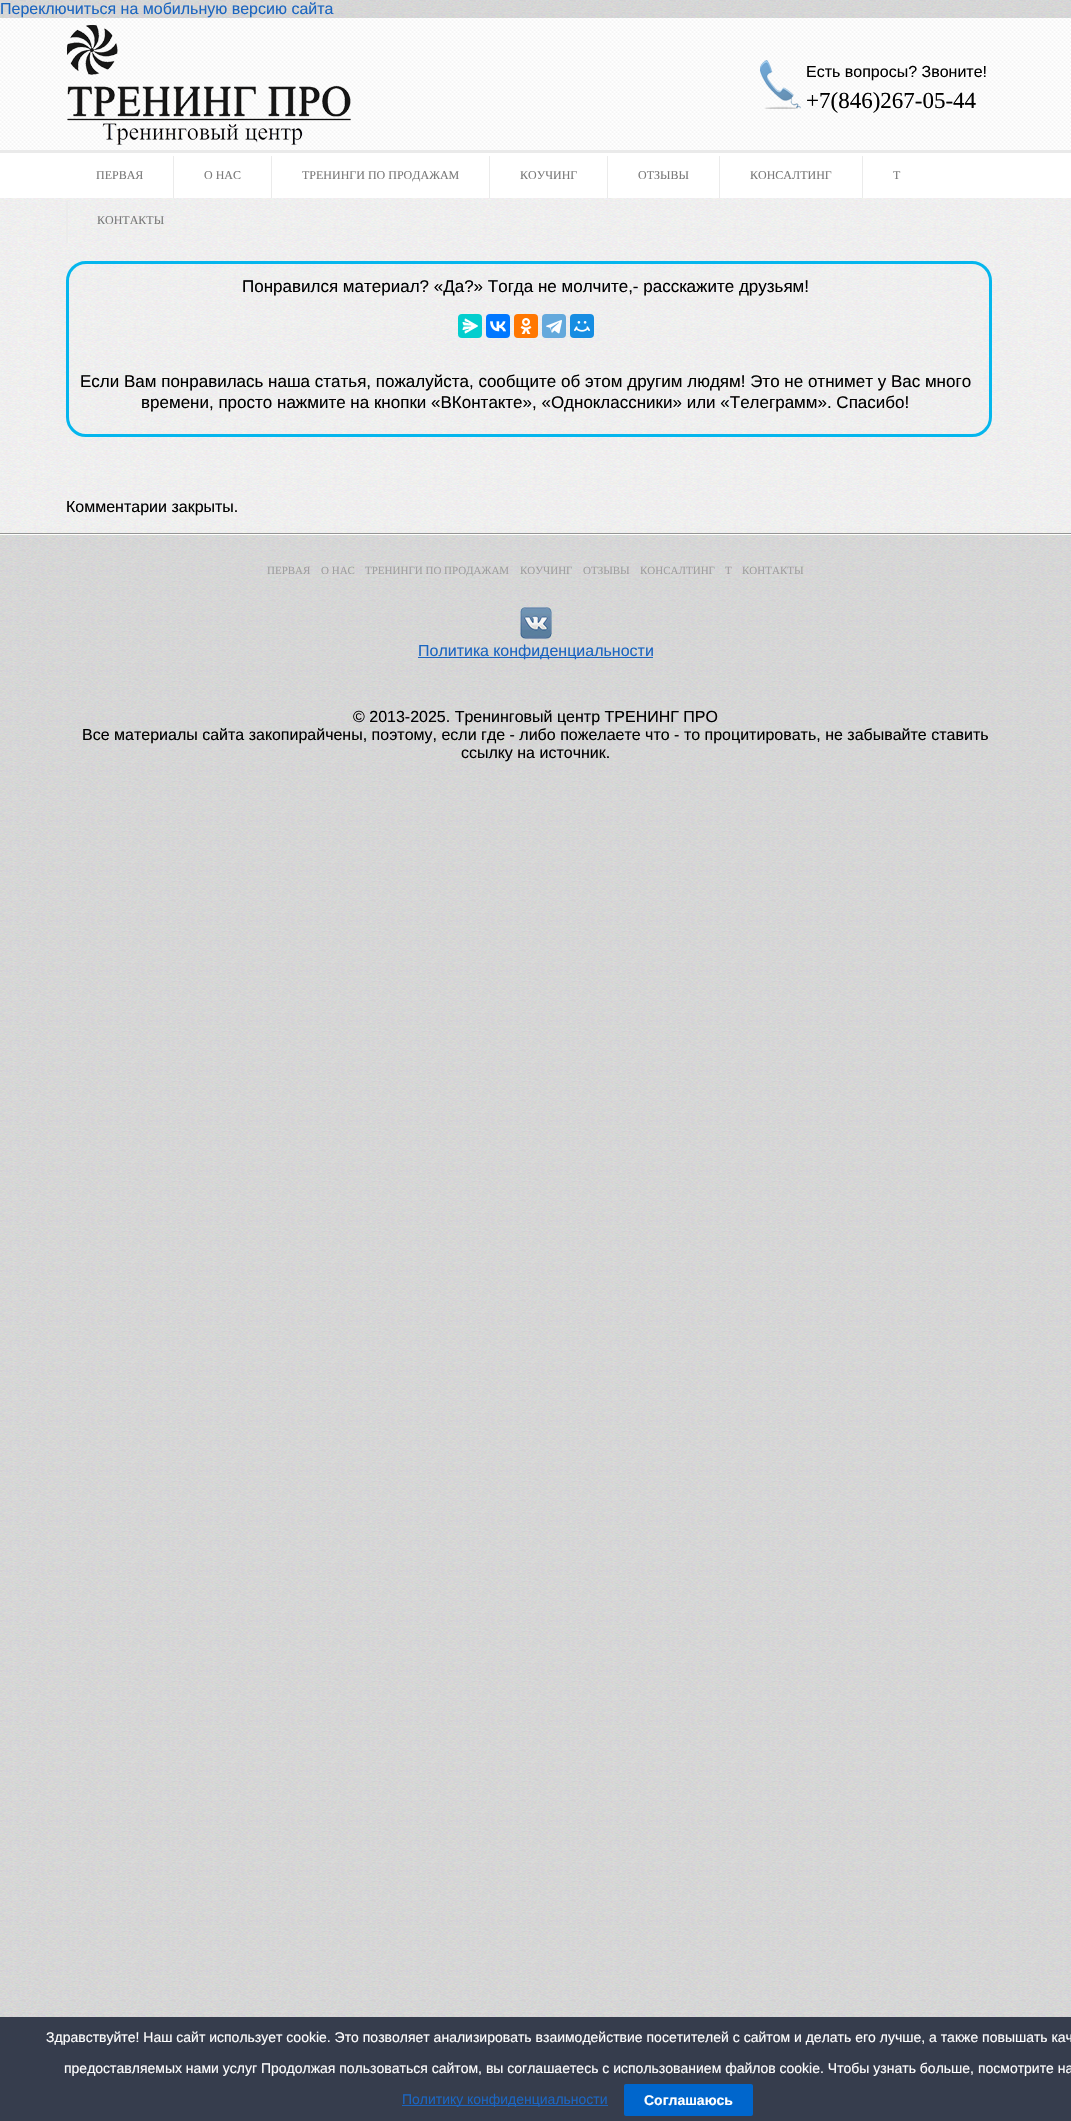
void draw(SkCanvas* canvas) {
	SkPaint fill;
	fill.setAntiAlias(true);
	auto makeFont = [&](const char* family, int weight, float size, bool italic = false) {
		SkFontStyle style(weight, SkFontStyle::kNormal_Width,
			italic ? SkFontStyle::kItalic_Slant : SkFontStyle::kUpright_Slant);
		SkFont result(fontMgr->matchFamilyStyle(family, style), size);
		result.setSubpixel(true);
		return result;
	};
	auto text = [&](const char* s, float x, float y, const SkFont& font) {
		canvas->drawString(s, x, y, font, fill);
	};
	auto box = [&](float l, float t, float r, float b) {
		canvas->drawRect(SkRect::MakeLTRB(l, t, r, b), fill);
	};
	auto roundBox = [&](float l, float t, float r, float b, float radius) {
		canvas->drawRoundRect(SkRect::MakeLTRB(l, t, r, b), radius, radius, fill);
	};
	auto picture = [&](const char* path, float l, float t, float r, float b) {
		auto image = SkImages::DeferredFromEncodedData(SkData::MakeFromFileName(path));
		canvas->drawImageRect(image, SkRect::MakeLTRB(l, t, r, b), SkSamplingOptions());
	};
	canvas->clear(0xFFFFFFFF);
	picture("image0.png", 0, 0, 1071, 2017);
	picture("image1.png", 0, 18, 1071, 198);
	picture("image2.png", 67, 25, 351, 145);
	picture("image3.png", 760, 60, 801, 109);
	fill.setColor(0xFFEBEBEB);
	box(173, 156, 174, 198);
	box(271, 156, 272, 198);
	box(489, 156, 490, 198);
	box(607, 156, 608, 198);
	box(719, 156, 720, 198);
	box(862, 156, 863, 198);
	picture("image4.png", 0, 198, 1071, 533);
	box(66, 201, 68, 243);
	fill.setStyle(SkPaint::kStroke_Style);
	fill.setStrokeWidth(3);
	fill.setColor(0xFF04B6ED);
	canvas->drawRoundRect(SkRect::MakeLTRB(67.5f, 262.5f, 990.5f, 435.5f), 18.5f, 18.5f, fill);
	fill.setStyle(SkPaint::kFill_Style);
	fill.setColor(0xFF03CECE);
	roundBox(458, 314, 482, 338, 4);
	picture("image5.png", 462, 318, 478, 334);
	fill.setColor(0xFF0077FF);
	roundBox(486, 314, 510, 338, 4);
	picture("image6.png", 490, 321, 506, 332);
	fill.setColor(0xFFFF7700);
	roundBox(514, 314, 538, 338, 4);
	picture("image7.png", 520, 318, 532, 334);
	fill.setColor(0xFF64A9DC);
	roundBox(542, 314, 566, 338, 4);
	picture("image8.png", 546, 320, 562, 334);
	fill.setColor(0xFF168DE2);
	roundBox(570, 314, 594, 338, 4);
	picture("image9.png", 574, 321, 590, 332);
	picture("image10.png", 0, 533, 1071, 535);
	picture("image11.png", 520, 607, 552, 639);
	fill.setColor(0xFF1B65C0);
	box(418, 657, 653, 658);
	fill.setColor(0xFF363D4D);
	box(0, 2017, 1071, 2121);
	fill.setColor(0xFF1B65C0);
	box(402, 2105, 608, 2106);
	fill.setColor(0xFF0066CC);
	roundBox(624, 2084, 753, 2116, 2);
	auto font1 = makeFont("Liberation Sans", 400, 16);
	fill.setColor(0xFF1B65C0);
	text("Переключиться на мобильную версию сайта", 0, 14, font1);
	fill.setColor(0xFF000000);
	text("Есть вопросы? Звоните!", 806, 77, font1);
	auto font2 = makeFont("Liberation Serif", 400, 23);
	text("+7(846)267-05-44", 806, 108, font2);
	auto font3 = makeFont("Liberation Serif", 400, 12);
	fill.setColor(0xFF7A7A7A);
	text("ПЕРВАЯ", 96, 179, font3);
	text("О НАС", 204, 179, font3);
	text("ТРЕНИНГИ ПО ПРОДАЖАМ", 302, 179, font3);
	text("КОУЧИНГ", 520, 179, font3);
	text("ОТЗЫВЫ", 638, 179, font3);
	text("КОНСАЛТИНГ", 750, 179, font3);
	text("Т", 893, 179, font3);
	text("КОНТАКТЫ", 97, 224, font3);
	auto font4 = makeFont("Liberation Sans", 400, 17);
	fill.setColor(0xFF000000);
	text("Понравился материал? «Да?» Тогда не молчите,- расскажите друзьям!", 242, 292, font4);
	text("Если Вам понравилась наша статья, пожалуйста, сообщите об этом другим людям! Это не отнимет у Вас много", 80, 387, font4);
	text("времени, просто нажмите на кнопки «ВКонтакте», «Одноклассники» или «Телеграмм». Спасибо!", 141, 408, font4);
	text("Комментарии закрыты.", 66, 512, font1);
	auto font5 = makeFont("Liberation Serif", 400, 11);
	fill.setColor(0xFF9E9E9E);
	text("ПЕРВАЯ", 267, 574, font5);
	text("О НАС", 321, 574, font5);
	text("ТРЕНИНГИ ПО ПРОДАЖАМ", 365, 574, font5);
	text("КОУЧИНГ", 520, 574, font5);
	text("ОТЗЫВЫ", 583, 574, font5);
	text("КОНСАЛТИНГ", 640, 574, font5);
	text("Т", 725, 574, font5);
	text("КОНТАКТЫ", 742, 574, font5);
	fill.setColor(0xFF1B65C0);
	text("Политика конфиденциальности", 418, 656, font1);
	fill.setColor(0xFF000000);
	text("© 2013-2025. Тренинговый центр ТРЕНИНГ ПРО", 353, 722, font1);
	text("Все материалы сайта закопирайчены, поэтому, если где - либо пожелаете что - то процитировать, не забывайте ставить", 82, 740, font1);
	text("ссылку на источник.", 461, 758, font1);
	auto font6 = makeFont("Liberation Sans", 400, 14);
	fill.setColor(0xFFFFFFFF);
	text("Здравствуйте! Наш сайт использует cookie. Это позволяет анализировать взаимодействие посетителей с сайтом и делать его лучше, а также повышать кач", 46, 2042, font6);
	text("предоставляемых нами услуг Продолжая пользоваться сайтом, вы соглашаетесь с использованием файлов cookie. Чтобы узнать больше, посмотрите на", 64, 2073, font6);
	fill.setColor(0xFF1B65C0);
	text("Политику конфиденциальности", 402, 2104, font6);
	auto font7 = makeFont("Liberation Sans", 700, 14);
	fill.setColor(0xFFFFFFFF);
	text("Соглашаюсь", 644, 2105, font7);
}
